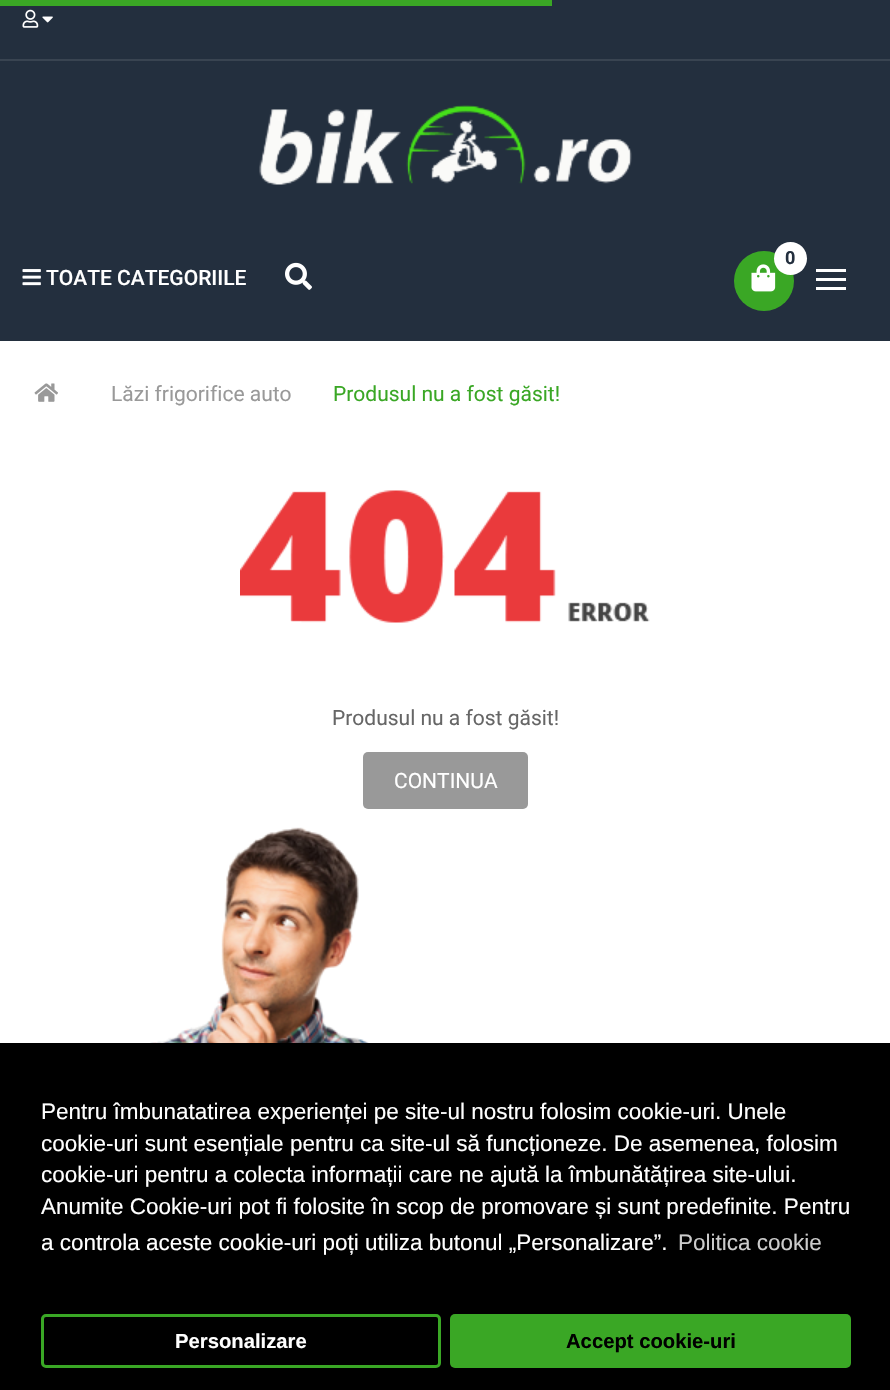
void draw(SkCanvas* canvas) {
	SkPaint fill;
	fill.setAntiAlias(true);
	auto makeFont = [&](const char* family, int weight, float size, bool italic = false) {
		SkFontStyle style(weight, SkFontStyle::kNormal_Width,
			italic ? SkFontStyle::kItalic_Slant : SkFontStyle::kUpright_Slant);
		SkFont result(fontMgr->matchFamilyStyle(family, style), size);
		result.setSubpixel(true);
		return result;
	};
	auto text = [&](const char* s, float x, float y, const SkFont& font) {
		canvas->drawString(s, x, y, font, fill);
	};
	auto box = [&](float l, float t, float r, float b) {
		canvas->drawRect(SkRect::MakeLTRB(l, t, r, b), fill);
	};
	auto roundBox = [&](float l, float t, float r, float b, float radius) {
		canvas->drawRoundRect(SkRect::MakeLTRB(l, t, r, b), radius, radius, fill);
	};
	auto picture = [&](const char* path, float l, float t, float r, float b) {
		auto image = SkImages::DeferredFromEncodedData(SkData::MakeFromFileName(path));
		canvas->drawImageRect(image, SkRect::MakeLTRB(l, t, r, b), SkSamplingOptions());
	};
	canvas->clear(0xFFFFFFFF);
	fill.setColor(0xFF232F3E);
	box(0, 0, 890, 341);
	fill.setColor(0xFF3AA725);
	box(0, 0, 552, 6);
	fill.setColor(0xFF394451);
	box(0, 59, 890, 61);
	picture("image0.png", 22, 9, 39, 28);
	picture("image1.png", 42, 16, 53, 23);
	picture("image2.png", 259, 105, 632, 185);
	fill.setColor(0xFFFFFFFF);
	box(816, 269, 846, 272);
	box(816, 278, 846, 281);
	box(816, 287, 846, 290);
	fill.setColor(0xFF3AA725);
	canvas->drawCircle(764, 281, 30, fill);
	picture("image3.png", 751, 264, 776, 292);
	fill.setColor(0xFFFFFFFF);
	canvas->drawCircle(790.5f, 258.5f, 16.5f, fill);
	picture("image4.png", 22, 269, 41, 286);
	picture("image5.png", 285, 262, 312, 290);
	picture("image6.png", 34, 383, 58, 402);
	picture("image7.png", 240, 490, 650, 623);
	fill.setColor(0xFF999999);
	roundBox(363, 752, 528, 809, 5);
	picture("image8.png", 150, 827, 369, 1043);
	fill.setColor(0xFF000000);
	box(0, 1043, 890, 1390);
	fill.setStyle(SkPaint::kStroke_Style);
	fill.setStrokeWidth(3);
	fill.setColor(0xFF3AA725);
	canvas->drawRoundRect(SkRect::MakeLTRB(42.5f, 1315.5f, 439.5f, 1366.5f), 3.5f, 3.5f, fill);
	fill.setStyle(SkPaint::kFill_Style);
	roundBox(450, 1314, 851, 1368, 5);
	auto font1 = makeFont("Roboto", 700, 18);
	fill.setColor(0xFF232F3E);
	text("0", 785, 264, font1);
	auto font2 = makeFont("Roboto", 500, 21);
	fill.setColor(0xFFFFFFFF);
	text("TOATE CATEGORIILE", 46, 285, font2);
	auto font3 = makeFont("Roboto", 400, 21);
	fill.setColor(0xFF999999);
	text("Lăzi frigorifice auto", 111, 401, font3);
	fill.setColor(0xFF3AA725);
	text("Produsul nu a fost găsit!", 333, 401, font3);
	fill.setColor(0xFF666666);
	text("Produsul nu a fost găsit!", 332, 725, font3);
	fill.setColor(0xFFFFFFFF);
	text("CONTINUA", 394, 788, font3);
	auto font4 = makeFont("Liberation Sans", 400, 22.5f);
	text("Pentru îmbunatatirea experienței pe site-ul nostru folosim cookie-uri. Unele", 41, 1119, font4);
	text("cookie-uri sunt esențiale pentru ca site-ul să funcționeze. De asemenea, folosim", 41, 1151, font4);
	text("cookie-uri pentru a colecta informații care ne ajută la îmbunătățirea site-ului.", 41, 1182, font4);
	text("Anumite Cookie-uri pot fi folosite în scop de promovare și sunt predefinite. Pentru", 41, 1214, font4);
	text("a controla aceste cookie-uri poți utiliza butonul „Personalizare”.", 41, 1250, font4);
	fill.setColor(0xFFCCCCCC);
	text("Politica cookie", 678, 1250, font4);
	auto font5 = makeFont("Liberation Sans", 700, 20.25f);
	fill.setColor(0xFFFFFFFF);
	text("Personalizare", 175, 1348, font5);
	fill.setColor(0xFF000000);
	text("Accept cookie-uri", 566, 1348, font5);
}
